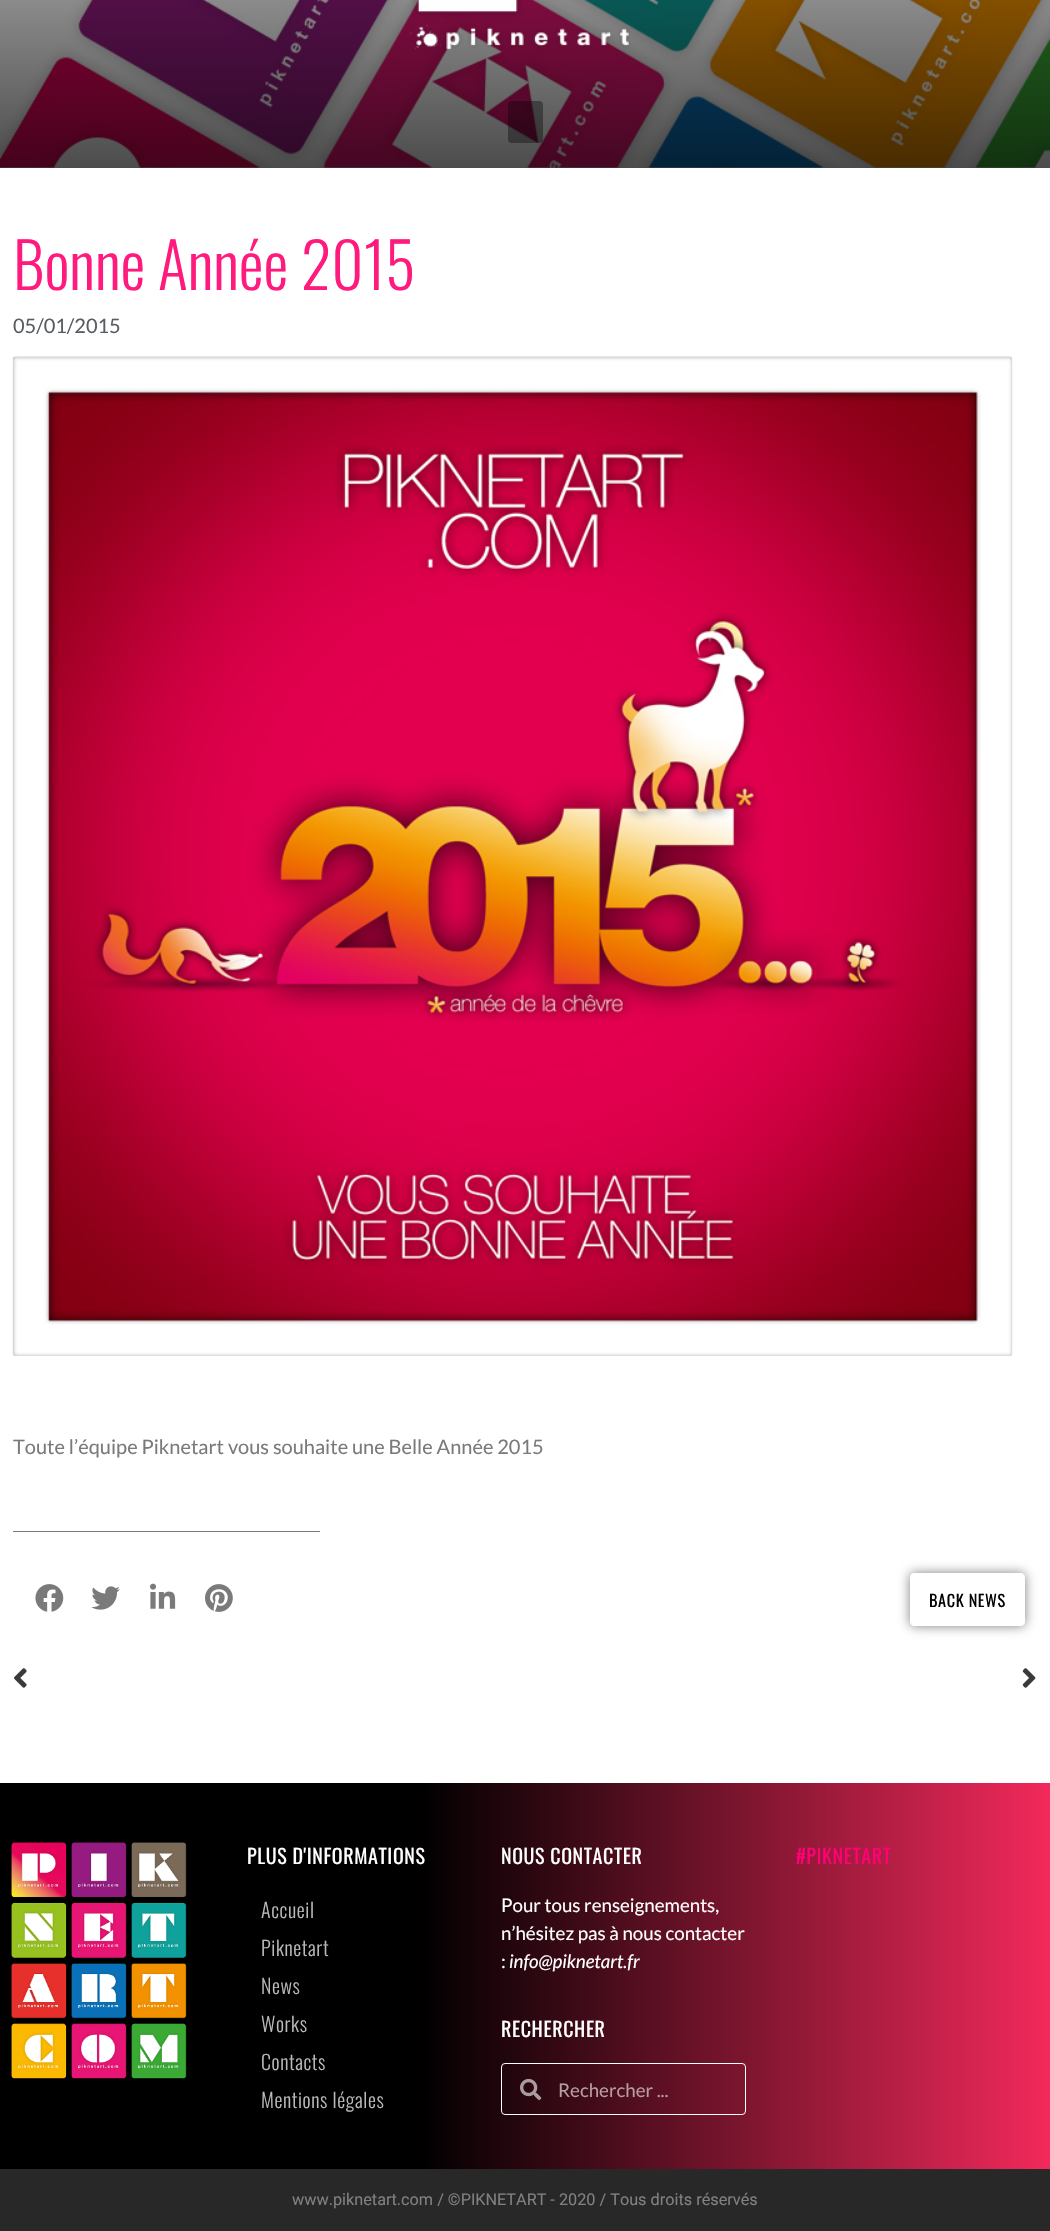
void draw(SkCanvas* canvas) {
	SkPaint fill;
	fill.setAntiAlias(true);
	auto makeFont = [&](const char* family, int weight, float size, bool italic = false) {
		SkFontStyle style(weight, SkFontStyle::kNormal_Width,
			italic ? SkFontStyle::kItalic_Slant : SkFontStyle::kUpright_Slant);
		SkFont result(fontMgr->matchFamilyStyle(family, style), size);
		result.setSubpixel(true);
		return result;
	};
	auto text = [&](const char* s, float x, float y, const SkFont& font) {
		canvas->drawString(s, x, y, font, fill);
	};
	auto spacedText = [&](const char* s, float x, float y, const SkFont& font, const SkPaint& ink, float letter, float word) {
		std::vector<SkGlyphID> glyphs(font.countText(s, strlen(s), SkTextEncoding::kUTF8));
		std::vector<float> xs(glyphs.size());
		font.textToGlyphs(s, strlen(s), SkTextEncoding::kUTF8, glyphs);
		font.getXPos(glyphs, xs, x);
		float extra = 0;
		for (size_t i = 0; i < glyphs.size(); i++) {
			xs[i] += extra;
			extra += letter + word * (glyphs[i] == font.unicharToGlyph(' '));
		}
		canvas->drawTextBlob(SkTextBlob::MakeFromPosHGlyphs(glyphs, xs, y, font), 0, 0, ink);
	};
	auto box = [&](float l, float t, float r, float b) {
		canvas->drawRect(SkRect::MakeLTRB(l, t, r, b), fill);
	};
	auto roundBox = [&](float l, float t, float r, float b, float radius) {
		canvas->drawRoundRect(SkRect::MakeLTRB(l, t, r, b), radius, radius, fill);
	};
	auto picture = [&](const char* path, float l, float t, float r, float b) {
		auto image = SkImages::DeferredFromEncodedData(SkData::MakeFromFileName(path));
		canvas->drawImageRect(image, SkRect::MakeLTRB(l, t, r, b), SkSamplingOptions());
	};
	canvas->clear(0xFFFFFFFF);
	picture("image0.png", 0, 0, 1050, 168);
	{
		const SkColor colors[] = {0x00000000, 0xB3000000};
		const float stops[] = {0, 1};
		const SkPoint ends[] = {{525, -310}, {525, 168}};
		fill.setShader(SkGradientShader::MakeLinear(ends, colors, stops, 2, SkTileMode::kClamp));
		fill.setAlpha(255);
	}
	box(0, 0, 1050, 168);
	picture("image1.png", 410, 0, 630, 50);
	fill.setShader(nullptr);
	fill.setColor(0x5C000000);
	roundBox(508, 101, 543, 143, 4);
	picture("image2.png", 12, 356, 1013, 1356);
	fill.setColor(0xFF7A7A7A);
	box(13, 1531, 320, 1532);
	picture("image3.png", 35, 1584, 64, 1612);
	picture("image4.png", 91, 1586, 120, 1610);
	picture("image5.png", 150, 1583, 176, 1609);
	picture("image6.png", 205, 1584, 233, 1612);
	canvas->save();
	canvas->clipPath(SkPathBuilder(SkPathFillType::kEvenOdd).moveTo(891, 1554).lineTo(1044, 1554).lineTo(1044, 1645).lineTo(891, 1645).close().moveTo(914, 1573).lineTo(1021, 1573).cubicTo(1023, 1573, 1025, 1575, 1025, 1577).lineTo(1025, 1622).cubicTo(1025, 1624, 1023, 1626, 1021, 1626).lineTo(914, 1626).cubicTo(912, 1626, 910, 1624, 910, 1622).lineTo(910, 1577).cubicTo(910, 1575, 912, 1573, 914, 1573).close().detach(), true);
	fill.setColor(0x80000000);
	fill.setMaskFilter(SkMaskFilter::MakeBlur(kNormal_SkBlurStyle, 6));
	canvas->drawRoundRect(SkRect::MakeLTRB(910, 1573, 1025, 1626), 4, 4, fill);
	fill.setMaskFilter(nullptr);
	canvas->restore();
	picture("image7.png", 14, 1668, 27, 1688);
	picture("image8.png", 1022, 1668, 1036, 1688);
	{
		const SkColor colors[] = {0xFF000000, 0xFFF2295B};
		const float stops[] = {0.4f, 1};
		const SkPoint ends[] = {{0, 1976}, {1050, 1976}};
		fill.setShader(SkGradientShader::MakeLinear(ends, colors, stops, 2, SkTileMode::kClamp));
		fill.setAlpha(255);
	}
	box(0, 1783, 1050, 2169);
	picture("image9.png", 11, 1842, 187, 2079);
	fill.setStyle(SkPaint::kStroke_Style);
	fill.setStrokeWidth(1);
	fill.setShader(nullptr);
	fill.setColor(0xFFFFFFFF);
	canvas->drawRoundRect(SkRect::MakeLTRB(501.5f, 2063.5f, 745.5f, 2114.5f), 3.5f, 3.5f, fill);
	picture("image10.png", 520, 2078, 542, 2101);
	fill.setStyle(SkPaint::kFill_Style);
	fill.setColor(0xFF282828);
	box(0, 2169, 1050, 2231);
	auto font1 = makeFont("Oswald", 300, 62.5f);
	fill.setColor(0xFFFF1A7E);
	text("Bonne Année 2015", 13, 290, font1);
	auto font2 = makeFont("Lato", 400, 20);
	fill.setColor(0xFF585D63);
	text("05/01/2015", 13, 333, font2);
	fill.setColor(0xFF7A7A7A);
	text("Toute l’équipe Piknetart vous souhaite une Belle Année 2015", 13, 1454, font2);
	auto font3 = makeFont("Oswald", 400, 16.25f);
	fill.setColor(0xFF000000);
	spacedText("BACK NEWS", 929, 1607, font3, fill, 0.6f, 0);
	auto font4 = makeFont("Oswald", 400, 20);
	fill.setColor(0xFFFFFFFF);
	spacedText("PLUS D'INFORMATIONS", 247, 1864, font4, fill, 0.6f, 0);
	auto font5 = makeFont("Oswald", 300, 20);
	fill.setColor(0xFFBABABA);
	spacedText("Accueil", 261, 1918, font5, fill, 0.6f, 0);
	spacedText("Piknetart", 261, 1956, font5, fill, 0.6f, 0);
	spacedText("News", 261, 1994, font5, fill, 0.6f, 0);
	spacedText("Works", 261, 2032, font5, fill, 0.6f, 0);
	spacedText("Contacts", 261, 2070, font5, fill, 0.6f, 0);
	spacedText("Mentions légales", 261, 2108, font5, fill, 0.6f, 0);
	fill.setColor(0xFFFFFFFF);
	spacedText("NOUS CONTACTER", 501, 1864, font4, fill, 0.6f, 0);
	auto font6 = makeFont("Lato", 400, 18.75f);
	text("Pour tous renseignements,", 501, 1912, font6);
	text("n’hésitez pas à nous contacter", 501, 1940, font6);
	text(":", 501, 1968, font6);
	auto font7 = makeFont("Lato", 400, 18.75f, true);
	text("info@piknetart.fr", 509, 1968, font7);
	spacedText("RECHERCHER", 501, 2037, font4, fill, 0.6f, 0);
	fill.setColor(0xFFB69EA4);
	text("Rechercher ...", 558, 2097, font6);
	fill.setColor(0xFFFF0077);
	spacedText("#PIKNETART", 796, 1864, font4, fill, 0.6f, 0);
	auto font8 = makeFont("Roboto", 400, 16.25f);
	fill.setColor(0xFF808080);
	text("www.piknetart.com / ©PIKNETART - 2020 / Tous droits réservés", 292, 2205, font8);
}
